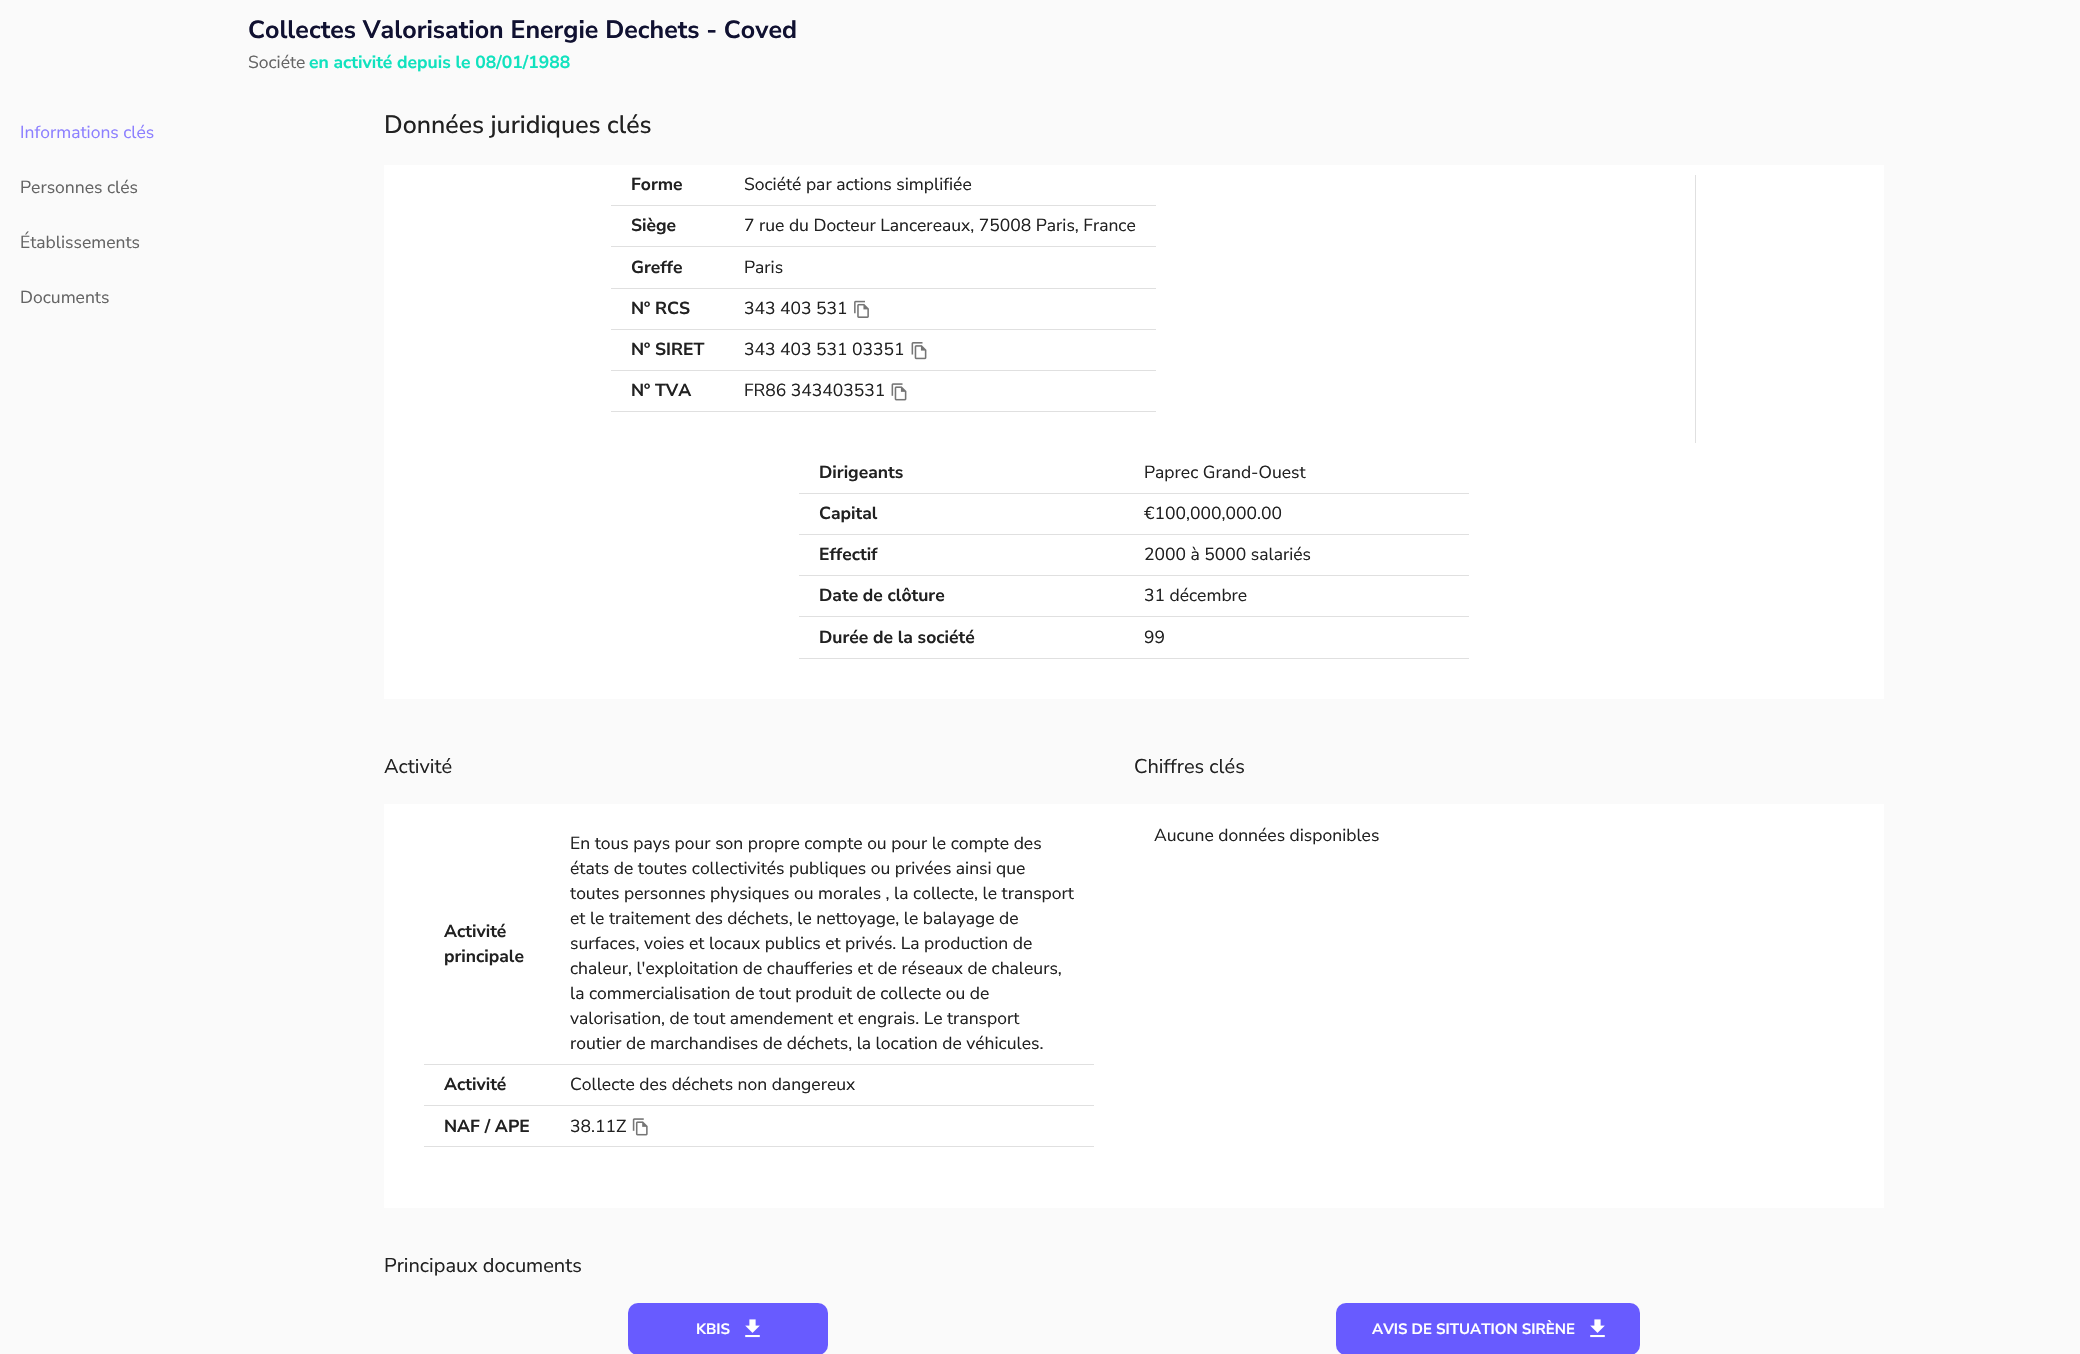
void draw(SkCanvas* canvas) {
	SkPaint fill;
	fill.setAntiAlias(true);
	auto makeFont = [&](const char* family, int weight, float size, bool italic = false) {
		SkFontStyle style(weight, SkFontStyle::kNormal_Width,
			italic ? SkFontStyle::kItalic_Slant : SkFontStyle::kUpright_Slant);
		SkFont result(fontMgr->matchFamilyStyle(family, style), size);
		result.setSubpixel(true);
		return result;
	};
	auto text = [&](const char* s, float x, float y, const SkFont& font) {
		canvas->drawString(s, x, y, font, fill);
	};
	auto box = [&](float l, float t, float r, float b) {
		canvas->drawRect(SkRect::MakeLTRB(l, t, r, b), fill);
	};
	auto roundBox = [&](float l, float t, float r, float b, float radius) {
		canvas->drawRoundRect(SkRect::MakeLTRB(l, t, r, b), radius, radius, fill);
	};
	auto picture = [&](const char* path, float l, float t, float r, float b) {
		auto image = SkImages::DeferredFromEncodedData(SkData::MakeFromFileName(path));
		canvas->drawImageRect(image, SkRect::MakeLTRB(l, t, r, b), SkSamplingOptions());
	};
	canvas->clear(0xFFFAFAFA);
	fill.setColor(0xFFFFFFFF);
	box(384, 165, 1884, 699);
	fill.setColor(0xFFE0E0E0);
	box(611, 205, 1156, 206);
	box(611, 246, 1156, 247);
	box(611, 288, 1156, 289);
	box(611, 329, 1156, 330);
	picture("image0.png", 854, 300, 869, 318);
	box(611, 370, 1156, 371);
	picture("image1.png", 911, 342, 927, 360);
	box(611, 411, 1156, 412);
	picture("image2.png", 891, 383, 907, 401);
	box(1695, 175, 1696, 443);
	box(799, 493, 1469, 494);
	box(799, 534, 1469, 535);
	box(799, 575, 1469, 576);
	box(799, 616, 1469, 617);
	box(799, 658, 1469, 659);
	fill.setColor(0xFFFFFFFF);
	box(384, 804, 1884, 1208);
	fill.setColor(0xFFE0E0E0);
	box(424, 1064, 1094, 1065);
	box(424, 1105, 1094, 1106);
	box(424, 1146, 1094, 1147);
	picture("image3.png", 632, 1118, 648, 1136);
	fill.setColor(0xFF685BFF);
	roundBox(628, 1303, 828, 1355, 10);
	picture("image4.png", 745, 1319, 760, 1338);
	roundBox(1336, 1303, 1640, 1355, 10);
	picture("image4.png", 1590, 1319, 1605, 1338);
	auto font1 = makeFont("Nunito Sans", 700, 25);
	fill.setColor(0xFF101131);
	text("Collectes Valorisation Energie Dechets - Coved", 248, 38, font1);
	auto font2 = makeFont("Nunito Sans", 400, 17.5f);
	fill.setColor(0xFF646464);
	text("Sociéte", 248, 68, font2);
	auto font3 = makeFont("Nunito Sans", 700, 17.5f);
	fill.setColor(0xFF10E2BE);
	text("en activité depuis le 08/01/1988", 309, 68, font3);
	fill.setColor(0xFF8C7FFF);
	text("Informations clés", 20, 138, font2);
	fill.setColor(0xFF646464);
	text("Personnes clés", 20, 193, font2);
	text("Établissements", 20, 248, font2);
	text("Documents", 20, 303, font2);
	auto font4 = makeFont("Nunito Sans", 500, 25);
	fill.setColor(0xFF212121);
	text("Données juridiques clés", 384, 133, font4);
	text("Forme", 631, 190, font3);
	text("Société par actions simplifiée", 744, 190, font2);
	text("Siège", 631, 231, font3);
	text("7 rue du Docteur Lancereaux, 75008 Paris, France", 744, 231, font2);
	text("Greffe", 631, 273, font3);
	text("Paris", 744, 273, font2);
	text("Nº RCS", 631, 314, font3);
	text("343 403 531", 744, 314, font2);
	text("Nº SIRET", 631, 355, font3);
	text("343 403 531 03351", 744, 355, font2);
	text("Nº TVA", 631, 396, font3);
	text("FR86 343403531", 744, 396, font2);
	text("Dirigeants", 819, 478, font3);
	text("Paprec Grand-Ouest", 1144, 478, font2);
	text("Capital", 819, 519, font3);
	text("€100,000,000.00", 1144, 519, font2);
	text("Effectif", 819, 560, font3);
	text("2000 à 5000 salariés", 1144, 560, font2);
	text("Date de clôture", 819, 601, font3);
	text("31 décembre", 1144, 601, font2);
	text("Durée de la société", 819, 643, font3);
	text("99", 1144, 643, font2);
	auto font5 = makeFont("Nunito Sans", 400, 20);
	text("Activité", 384, 773, font5);
	text("Activité", 444, 937, font3);
	text("principale", 444, 962, font3);
	text("En tous pays pour son propre compte ou pour le compte des", 570, 849, font2);
	text("états de toutes collectivités publiques ou privées ainsi que", 570, 874, font2);
	text("toutes personnes physiques ou morales , la collecte, le transport", 570, 899, font2);
	text("et le traitement des déchets, le nettoyage, le balayage de", 570, 924, font2);
	text("surfaces, voies et locaux publics et privés. La production de", 570, 949, font2);
	text("chaleur, l'exploitation de chaufferies et de réseaux de chaleurs,", 570, 974, font2);
	text("la commercialisation de tout produit de collecte ou de", 570, 999, font2);
	text("valorisation, de tout amendement et engrais. Le transport", 570, 1024, font2);
	text("routier de marchandises de déchets, la location de véhicules.", 570, 1049, font2);
	text("Activité", 444, 1090, font3);
	text("Collecte des déchets non dangereux", 570, 1090, font2);
	text("NAF / APE", 444, 1132, font3);
	text("38.11Z", 570, 1132, font2);
	text("Chiffres clés", 1134, 773, font5);
	text("Aucune données disponibles", 1154, 841, font2);
	text("Principaux documents", 384, 1272, font5);
	auto font6 = makeFont("Nunito Sans", 700, 15);
	fill.setColor(0xFFFFFFFF);
	text("KBIS", 696, 1334, font6);
	text("AVIS DE SITUATION SIRÈNE", 1372, 1334, font6);
}
